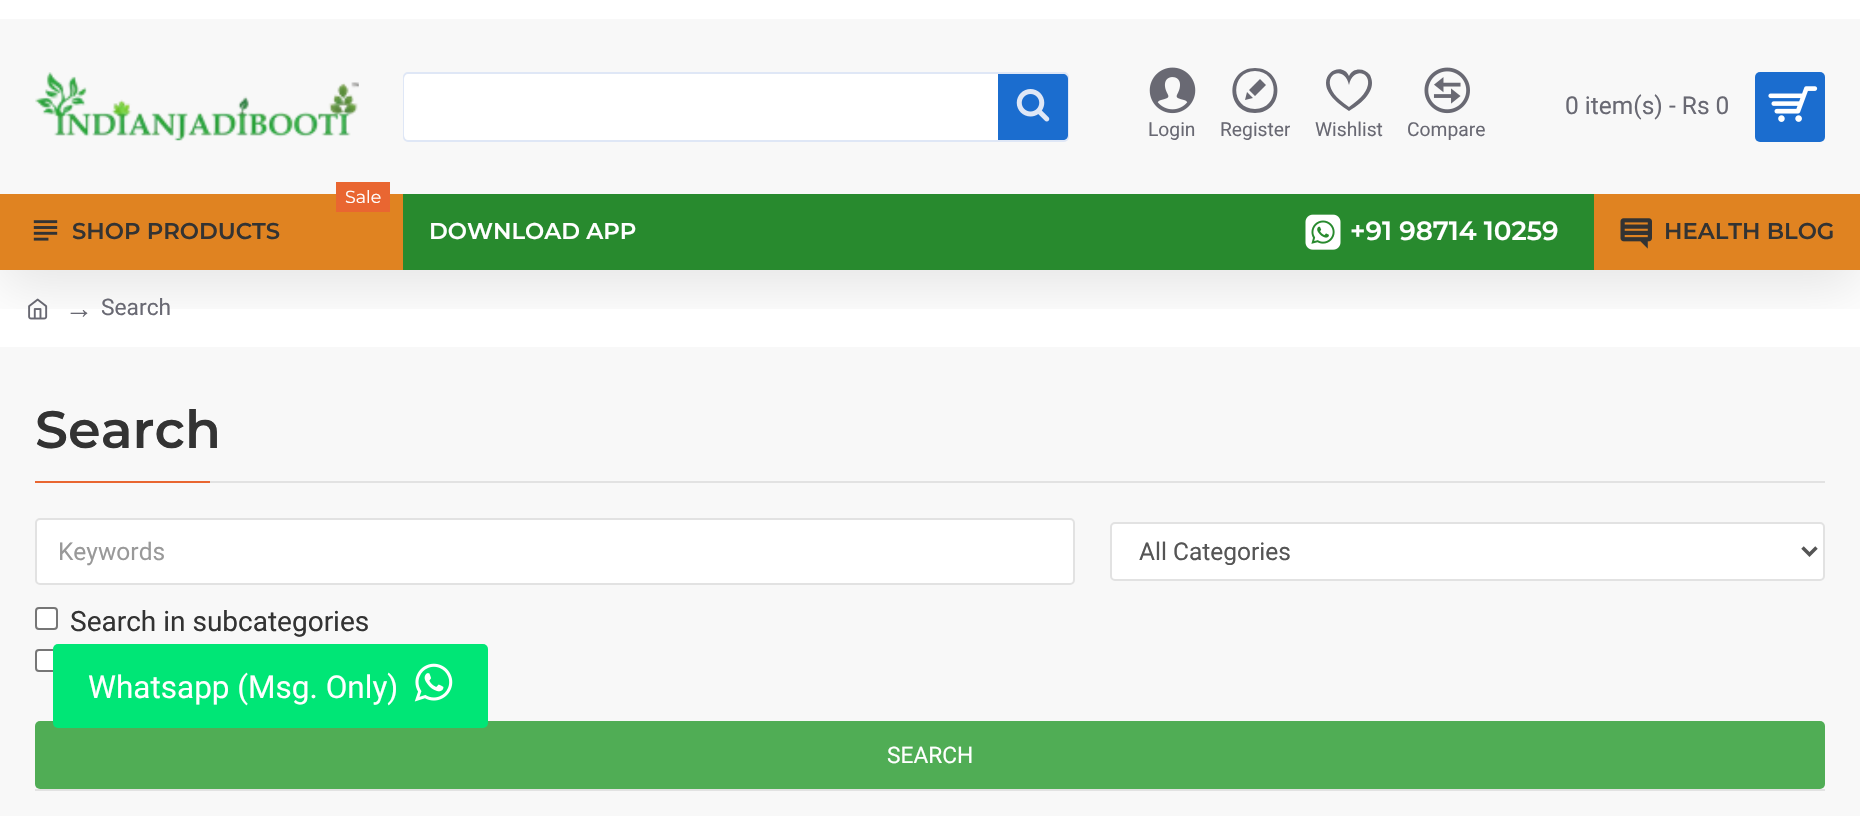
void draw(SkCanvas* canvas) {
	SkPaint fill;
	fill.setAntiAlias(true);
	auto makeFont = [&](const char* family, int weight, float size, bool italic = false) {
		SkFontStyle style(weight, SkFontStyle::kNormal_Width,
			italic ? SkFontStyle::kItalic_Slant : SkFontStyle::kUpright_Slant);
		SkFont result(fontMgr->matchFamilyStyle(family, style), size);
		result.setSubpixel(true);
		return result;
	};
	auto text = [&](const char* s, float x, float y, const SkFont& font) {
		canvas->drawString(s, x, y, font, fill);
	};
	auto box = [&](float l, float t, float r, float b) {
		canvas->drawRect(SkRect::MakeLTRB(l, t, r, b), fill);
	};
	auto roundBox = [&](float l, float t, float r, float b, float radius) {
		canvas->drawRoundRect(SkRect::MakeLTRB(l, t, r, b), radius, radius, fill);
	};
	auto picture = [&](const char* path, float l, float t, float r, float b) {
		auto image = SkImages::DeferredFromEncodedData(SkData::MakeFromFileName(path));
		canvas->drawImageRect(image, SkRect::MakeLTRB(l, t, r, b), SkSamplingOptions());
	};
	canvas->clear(0xFFF8F8F8);
	fill.setColor(0xFFFFFFFF);
	box(0, 270, 1860, 347);
	picture("image8.png", 28, 298, 48, 320);
	canvas->save();
	canvas->clipRect(SkRect::MakeLTRB(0, 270, 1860, 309));
	fill.setColor(0x1A000000);
	fill.setMaskFilter(SkMaskFilter::MakeBlur(kNormal_SkBlurStyle, 26));
	canvas->drawRect(SkRect::MakeLTRB(0, -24, 1860, 287), fill);
	fill.setMaskFilter(nullptr);
	canvas->restore();
	fill.setColor(0xFFFFFFFF);
	box(0, 0, 1860, 19);
	picture("image0.png", 35, 72, 359, 141);
	fill.setStyle(SkPaint::kStroke_Style);
	fill.setStrokeWidth(2);
	fill.setColor(0xFFDFE7F6);
	canvas->drawRoundRect(SkRect::MakeLTRB(404, 73, 1068, 141), 4, 4, fill);
	fill.setStyle(SkPaint::kFill_Style);
	fill.setColor(0xFFFFFFFF);
	canvas->drawPath(SkPathBuilder().moveTo(409, 74).lineTo(998, 74).lineTo(998, 140).lineTo(409, 140).cubicTo(406, 140, 404, 138, 404, 135).lineTo(404, 79).cubicTo(404, 76, 406, 74, 409, 74).close().detach(), fill);
	fill.setColor(0xFF1B6DCF);
	canvas->drawPath(SkPathBuilder().moveTo(998, 74).lineTo(1063, 74).cubicTo(1066, 74, 1068, 76, 1068, 79).lineTo(1068, 135).cubicTo(1068, 138, 1066, 140, 1063, 140).lineTo(998, 140).close().detach(), fill);
	picture("image1.png", 1016, 89, 1050, 122);
	roundBox(1755, 72, 1825, 142, 5);
	picture("image2.png", 1768, 86, 1818, 122);
	picture("image3.png", 1149, 67, 1196, 114);
	fill.setColor(0xFF696973);
	canvas->drawPath(SkPathBuilder().moveTo(1255, 71).cubicTo(1280, 71, 1280, 109, 1255, 109).cubicTo(1230, 109, 1230, 71, 1255, 71).close().moveTo(1255, 68).cubicTo(1225, 68, 1225, 113, 1255, 113).cubicTo(1285, 113, 1285, 68, 1255, 68).close().moveTo(1247, 92).lineTo(1253, 98).lineTo(1245, 100).close().moveTo(1266, 85).lineTo(1255, 96).lineTo(1249, 90).lineTo(1260, 79).close().detach(), fill);
	canvas->drawPath(SkPathBuilder().moveTo(1349, 85).cubicTo(1355, 59, 1389, 81, 1349, 107).cubicTo(1309, 81, 1343, 59, 1349, 85).close().moveTo(1326, 83).cubicTo(1326, 95, 1340, 105, 1349, 111).cubicTo(1359, 105, 1372, 95, 1372, 83).cubicTo(1372, 80, 1371, 77, 1370, 75).cubicTo(1365, 68, 1353, 67, 1349, 76).cubicTo(1344, 64, 1326, 69, 1326, 83).close().detach(), fill);
	picture("image4.png", 1424, 67, 1470, 114);
	fill.setColor(0xFFE08321);
	box(0, 194, 403, 270);
	fill.setColor(0xFFE96631);
	box(336, 182, 390, 212);
	picture("image5.png", 33, 220, 58, 241);
	fill.setColor(0xFF288A2E);
	box(403, 194, 1594, 270);
	picture("image6.png", 1305, 214, 1341, 250);
	fill.setColor(0xFFE08321);
	box(1594, 194, 1860, 270);
	picture("image7.png", 1620, 218, 1652, 249);
	fill.setColor(0xFFE2E2E2);
	box(210, 481, 1825, 483);
	fill.setColor(0xFFE96631);
	box(35, 481, 210, 483);
	fill.setColor(0xFFFFFFFF);
	canvas->drawRoundRect(SkRect::MakeLTRB(36, 519, 1074, 584), 4, 4, fill);
	fill.setStyle(SkPaint::kStroke_Style);
	fill.setColor(0xFFE2E2E2);
	canvas->drawRoundRect(SkRect::MakeLTRB(36, 519, 1074, 584), 4, 4, fill);
	fill.setStyle(SkPaint::kFill_Style);
	fill.setColor(0xFFFFFFFF);
	canvas->drawRoundRect(SkRect::MakeLTRB(1111, 523, 1824, 580), 4, 4, fill);
	fill.setStyle(SkPaint::kStroke_Style);
	fill.setColor(0xFFE2E2E2);
	canvas->drawRoundRect(SkRect::MakeLTRB(1111, 523, 1824, 580), 4, 4, fill);
	fill.setStrokeWidth(3.5f);
	fill.setColor(0xFF555555);
	canvas->drawPath(SkPathBuilder().moveTo(1802.5f, 547.5f).lineTo(1809.5f, 554.5f).lineTo(1816.5f, 547.5f).detach(), fill);
	fill.setStyle(SkPaint::kFill_Style);
	fill.setColor(0xFFFFFFFF);
	canvas->drawRoundRect(SkRect::MakeLTRB(36, 608, 57, 629), 3, 3, fill);
	fill.setStyle(SkPaint::kStroke_Style);
	fill.setStrokeWidth(2);
	fill.setColor(0xFF767676);
	canvas->drawRoundRect(SkRect::MakeLTRB(36, 608, 57, 629), 3, 3, fill);
	fill.setStyle(SkPaint::kFill_Style);
	fill.setColor(0xFFFFFFFF);
	canvas->drawRoundRect(SkRect::MakeLTRB(36, 650, 57, 671), 3, 3, fill);
	fill.setStyle(SkPaint::kStroke_Style);
	fill.setColor(0xFF767676);
	canvas->drawRoundRect(SkRect::MakeLTRB(36, 650, 57, 671), 3, 3, fill);
	fill.setStyle(SkPaint::kFill_Style);
	fill.setColor(0xFF50AD55);
	roundBox(35, 721, 1825, 789, 5);
	fill.setColor(0xFFE2E2E2);
	box(35, 789, 1825, 791);
	fill.setColor(0xFF00E676);
	roundBox(53, 644, 488, 728, 5);
	picture("image9.png", 414, 663, 453, 702);
	auto font1 = makeFont("Roboto", 400, 24.5f);
	fill.setColor(0xFF696973);
	text("0 item(s) - Rs 0", 1565, 114, font1);
	auto font2 = makeFont("Roboto", 400, 19.25f);
	text("Login", 1148, 136, font2);
	canvas->save();
	canvas->clipRect(SkRect::MakeLTRB(1220, 117, 1290, 145));
	text("Register", 1220, 136, font2);
	canvas->restore();
	text("Wishlist", 1315, 136, font2);
	text("Compare", 1407, 136, font2);
	auto font3 = makeFont("Montserrat", 400, 17.5f);
	fill.setColor(0xFFFFFFFF);
	text("Sale", 345, 203, font3);
	auto font4 = makeFont("Montserrat", 600, 22.75f);
	fill.setColor(0xFF333333);
	text("SHOP PRODUCTS", 72, 239, font4);
	fill.setColor(0xFFFFFFFF);
	text("DOWNLOAD APP", 429, 239, font4);
	auto font5 = makeFont("Montserrat", 600, 26.25f);
	text("+91 98714 10259", 1350, 240, font5);
	fill.setColor(0xFF333333);
	text("HEALTH BLOG", 1664, 239, font4);
	auto font6 = makeFont("Liberation Serif", 400, 28);
	fill.setColor(0xFF696973);
	text("→", 65, 318, font6);
	auto font7 = makeFont("Roboto", 400, 22.75f);
	text("Search", 101, 315, font7);
	auto font8 = makeFont("Montserrat", 600, 52.5f);
	fill.setColor(0xFF333333);
	text("Search", 35, 448, font8);
	fill.setColor(0xFF999999);
	text("Keywords", 58, 560, font1);
	fill.setColor(0xFF555555);
	text("All Categories", 1139, 560, font1);
	auto font9 = makeFont("Roboto", 400, 28);
	fill.setColor(0xFF333333);
	text("Search in subcategories", 70, 631, font9);
	fill.setColor(0xFFFFFFFF);
	text("SEARCH", 887, 763, font7);
	auto font10 = makeFont("Roboto", 400, 31.5f);
	text("Whatsapp (Msg. Only)", 88, 698, font10);
}
